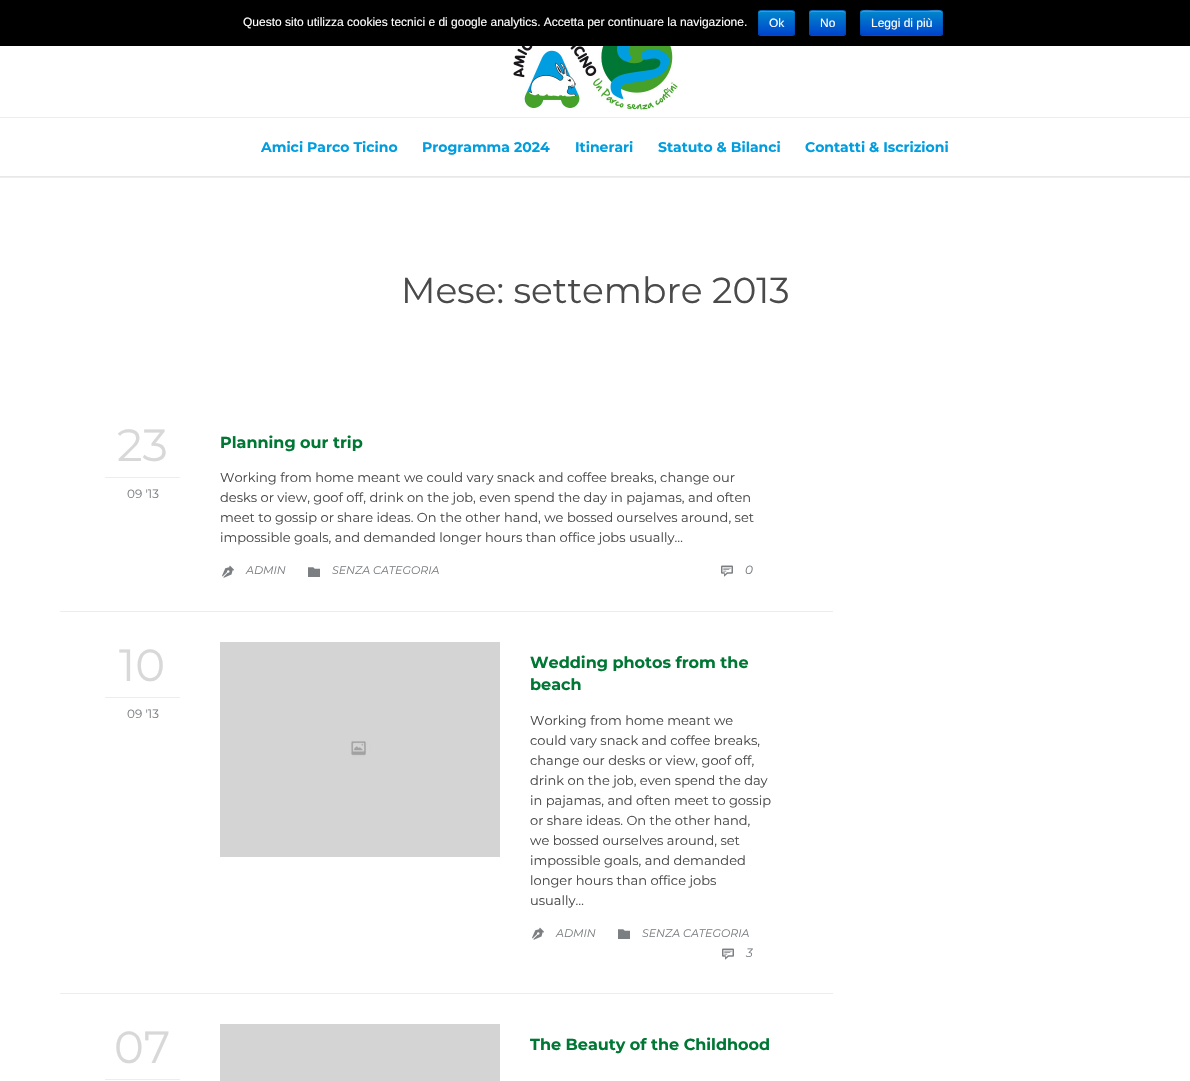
void draw(SkCanvas* canvas) {
	SkPaint fill;
	fill.setAntiAlias(true);
	auto makeFont = [&](const char* family, int weight, float size, bool italic = false) {
		SkFontStyle style(weight, SkFontStyle::kNormal_Width,
			italic ? SkFontStyle::kItalic_Slant : SkFontStyle::kUpright_Slant);
		SkFont result(fontMgr->matchFamilyStyle(family, style), size);
		result.setSubpixel(true);
		return result;
	};
	auto text = [&](const char* s, float x, float y, const SkFont& font) {
		canvas->drawString(s, x, y, font, fill);
	};
	auto box = [&](float l, float t, float r, float b) {
		canvas->drawRect(SkRect::MakeLTRB(l, t, r, b), fill);
	};
	auto roundBox = [&](float l, float t, float r, float b, float radius) {
		canvas->drawRoundRect(SkRect::MakeLTRB(l, t, r, b), radius, radius, fill);
	};
	auto picture = [&](const char* path, float l, float t, float r, float b) {
		auto image = SkImages::DeferredFromEncodedData(SkData::MakeFromFileName(path));
		canvas->drawImageRect(image, SkRect::MakeLTRB(l, t, r, b), SkSamplingOptions());
	};
	canvas->clear(0xFFEDEDED);
	fill.setColor(0xFF000000);
	box(0, 0, 1190, 46);
	fill.setColor(0xFF006DCC);
	roundBox(758, 10, 795, 36, 3);
	canvas->save();
	canvas->clipPath(SkPathBuilder().moveTo(761, 10).lineTo(792, 10).cubicTo(793.5f, 10, 795, 11.5f, 795, 13).lineTo(795, 33).cubicTo(795, 34.5f, 793.5f, 36, 792, 36).lineTo(761, 36).cubicTo(759.5f, 36, 758, 34.5f, 758, 33).lineTo(758, 13).cubicTo(758, 11.5f, 759.5f, 10, 761, 10).close().detach(), true);
	{
		const SkColor colors[] = {0xFF0088CC, 0xFF0044CC};
		const float stops[] = {0, 1};
		const SkPoint ends[] = {{777, 11}, {777, 35}};
		fill.setShader(SkGradientShader::MakeLinear(ends, colors, stops, 2, SkTileMode::kClamp));
		fill.setAlpha(255);
	}
	box(758, 11, 795, 35);
	canvas->restore();
	fill.setShader(nullptr);
	fill.setColor(0x33FFFFFF);
	canvas->drawPath(SkPathBuilder().moveTo(761, 12).lineTo(792, 12).cubicTo(793, 12, 794, 13, 794, 14).cubicTo(794, 9.5f, 790.5f, 11, 787, 11).lineTo(766, 11).cubicTo(762.5f, 11, 759, 9.5f, 759, 14).cubicTo(759, 13, 760, 12, 761, 12).close().detach(), fill);
	fill.setStyle(SkPaint::kStroke_Style);
	fill.setStrokeWidth(1);
	fill.setColor(0x40000000);
	canvas->drawPath(SkPathBuilder().moveTo(794, 35).cubicTo(793.5f, 35, 792.5f, 35.5f, 792, 35.5f).lineTo(761, 35.5f).cubicTo(760.5f, 35.5f, 759.5f, 35, 759, 35).detach(), fill);
	fill.setColor(0x1A000000);
	canvas->drawPath(SkPathBuilder().moveTo(759, 35).cubicTo(759, 34.5f, 758.5f, 33.5f, 758.5f, 33).lineTo(758.5f, 13).cubicTo(758.5f, 12.5f, 759, 11.5f, 759, 11).cubicTo(759.5f, 11, 760.5f, 10.5f, 761, 10.5f).lineTo(792, 10.5f).cubicTo(792.5f, 10.5f, 793.5f, 11, 794, 11).cubicTo(794, 11.5f, 794.5f, 12.5f, 794.5f, 13).lineTo(794.5f, 33).cubicTo(794.5f, 33.5f, 794, 34.5f, 794, 35).detach(), fill);
	fill.setStyle(SkPaint::kFill_Style);
	fill.setColor(0xFF006DCC);
	roundBox(809, 10, 846, 36, 3);
	canvas->save();
	canvas->clipPath(SkPathBuilder().moveTo(812, 10).lineTo(843, 10).cubicTo(844.5f, 10, 846, 11.5f, 846, 13).lineTo(846, 33).cubicTo(846, 34.5f, 844.5f, 36, 843, 36).lineTo(812, 36).cubicTo(810.5f, 36, 809, 34.5f, 809, 33).lineTo(809, 13).cubicTo(809, 11.5f, 810.5f, 10, 812, 10).close().detach(), true);
	{
		const SkColor colors[] = {0xFF0088CC, 0xFF0044CC};
		const float stops[] = {0, 1};
		const SkPoint ends[] = {{828, 11}, {828, 35}};
		fill.setShader(SkGradientShader::MakeLinear(ends, colors, stops, 2, SkTileMode::kClamp));
		fill.setAlpha(255);
	}
	box(809, 11, 846, 35);
	canvas->restore();
	fill.setShader(nullptr);
	fill.setColor(0x33FFFFFF);
	canvas->drawPath(SkPathBuilder().moveTo(812, 12).lineTo(843, 12).cubicTo(844, 12, 845, 13, 845, 14).cubicTo(845, 9.5f, 841.5f, 11, 838, 11).lineTo(817, 11).cubicTo(813.5f, 11, 810, 9.5f, 810, 14).cubicTo(810, 13, 811, 12, 812, 12).close().detach(), fill);
	fill.setStyle(SkPaint::kStroke_Style);
	fill.setColor(0x40000000);
	canvas->drawPath(SkPathBuilder().moveTo(845, 35).cubicTo(844.5f, 35, 843.5f, 35.5f, 843, 35.5f).lineTo(812, 35.5f).cubicTo(811.5f, 35.5f, 810.5f, 35, 810, 35).detach(), fill);
	fill.setColor(0x1A000000);
	canvas->drawPath(SkPathBuilder().moveTo(810, 35).cubicTo(810, 34.5f, 809.5f, 33.5f, 809.5f, 33).lineTo(809.5f, 13).cubicTo(809.5f, 12.5f, 810, 11.5f, 810, 11).cubicTo(810.5f, 11, 811.5f, 10.5f, 812, 10.5f).lineTo(843, 10.5f).cubicTo(843.5f, 10.5f, 844.5f, 11, 845, 11).cubicTo(845, 11.5f, 845.5f, 12.5f, 845.5f, 13).lineTo(845.5f, 33).cubicTo(845.5f, 33.5f, 845, 34.5f, 845, 35).detach(), fill);
	fill.setStyle(SkPaint::kFill_Style);
	fill.setColor(0xFF006DCC);
	roundBox(860, 10, 943, 36, 3);
	canvas->save();
	canvas->clipPath(SkPathBuilder().moveTo(863, 10).lineTo(940, 10).cubicTo(941.5f, 10, 943, 11.5f, 943, 13).lineTo(943, 33).cubicTo(943, 34.5f, 941.5f, 36, 940, 36).lineTo(863, 36).cubicTo(861.5f, 36, 860, 34.5f, 860, 33).lineTo(860, 13).cubicTo(860, 11.5f, 861.5f, 10, 863, 10).close().detach(), true);
	{
		const SkColor colors[] = {0xFF0088CC, 0xFF0044CC};
		const float stops[] = {0, 1};
		const SkPoint ends[] = {{902, 11}, {902, 35}};
		fill.setShader(SkGradientShader::MakeLinear(ends, colors, stops, 2, SkTileMode::kClamp));
		fill.setAlpha(255);
	}
	box(860, 11, 943, 35);
	canvas->restore();
	fill.setShader(nullptr);
	fill.setColor(0x33FFFFFF);
	canvas->drawPath(SkPathBuilder().moveTo(863, 12).lineTo(940, 12).cubicTo(941, 12, 942, 13, 942, 14).cubicTo(942, 7, 930, 11, 927, 11).lineTo(876, 11).cubicTo(873, 11, 861, 7, 861, 14).cubicTo(861, 13, 862, 12, 863, 12).close().detach(), fill);
	fill.setStyle(SkPaint::kStroke_Style);
	fill.setColor(0x40000000);
	canvas->drawPath(SkPathBuilder().moveTo(942, 35).lineTo(940, 35.5f).lineTo(927, 35.5f).cubicTo(920, 35.5f, 863.5f, 36.5f, 861.5f, 35).lineTo(861, 35).detach(), fill);
	fill.setColor(0x1A000000);
	canvas->drawPath(SkPathBuilder().moveTo(861, 35).cubicTo(859.5f, 33, 860.5f, 28.5f, 860.5f, 26.5f).cubicTo(860.5f, 7.5f, 857, 10.5f, 876, 10.5f).lineTo(927, 10.5f).cubicTo(946, 10.5f, 942.5f, 7.5f, 942.5f, 26.5f).cubicTo(942.5f, 28.5f, 943.5f, 33, 942, 35).detach(), fill);
	fill.setStyle(SkPaint::kFill_Style);
	fill.setColor(0xFFE8E8E8);
	box(0, 176, 1190, 177);
	fill.setColor(0xFFFFFFFF);
	box(0, 46, 1190, 117);
	picture("image0.png", 513, 46, 678, 111);
	box(0, 118, 1190, 176);
	box(0, 178, 1190, 1081);
	fill.setColor(0xFFEDEDED);
	box(60, 611, 833, 612);
	box(105, 477, 180, 478);
	picture("image1.png", 222, 565, 234, 578);
	picture("image2.png", 308, 567, 320, 577);
	picture("image3.png", 721, 565, 733, 577);
	box(60, 993, 833, 994);
	box(105, 697, 180, 698);
	picture("image4.png", 220, 642, 500, 857);
	picture("image1.png", 532, 927, 544, 940);
	picture("image2.png", 618, 929, 630, 939);
	picture("image3.png", 722, 948, 734, 960);
	box(105, 1079, 180, 1080);
	fill.setColor(0xFFD4D4D4);
	box(220, 1024, 500, 1081);
	auto font1 = makeFont("Liberation Sans", 400, 12);
	fill.setColor(0xFFFFFFFF);
	text("Questo sito utilizza cookies tecnici e di google analytics. Accetta per continuare la navigazione.", 243, 26, font1);
	text("Ok", 769, 27, font1);
	text("No", 820, 27, font1);
	text("Leggi di più", 871, 27, font1);
	auto font2 = makeFont("Montserrat", 700, 14);
	fill.setColor(0xFF009EE0);
	text("Amici Parco Ticino", 261, 152, font2);
	text("Programma 2024", 422, 152, font2);
	text("Itinerari", 575, 152, font2);
	text("Statuto & Bilanci", 658, 152, font2);
	text("Contatti & Iscrizioni", 805, 152, font2);
	auto font3 = makeFont("Montserrat", 400, 36);
	fill.setColor(0xFF4A4A4A);
	text("Mese: settembre 2013", 401, 303, font3);
	auto font4 = makeFont("Montserrat", 400, 45);
	fill.setColor(0xFFD8D8D8);
	text("23", 117, 461, font4);
	auto font5 = makeFont("Montserrat", 400, 12);
	fill.setColor(0xFF7C7F82);
	text("09 '13", 127, 498, font5);
	auto font6 = makeFont("Montserrat", 700, 16);
	fill.setColor(0xFF007734);
	text("Planning our trip", 220, 448, font6);
	auto font7 = makeFont("Montserrat", 400, 13);
	fill.setColor(0xFF4A4A4A);
	text("Working from home meant we could vary snack and coffee breaks, change our", 220, 482, font7);
	text("desks or view, goof off, drink on the job, even spend the day in pajamas, and often", 220, 502, font7);
	text("meet to gossip or share ideas. On the other hand, we bossed ourselves around, set", 220, 522, font7);
	text("impossible goals, and demanded longer hours than office jobs usually…", 220, 542, font7);
	auto font8 = makeFont("Montserrat", 100, 11, true);
	fill.setColor(0xFF7C7F82);
	text("ADMIN", 246, 574, font8);
	text("SENZA CATEGORIA", 332, 574, font8);
	auto font9 = makeFont("Montserrat", 100, 12, true);
	text("0", 745, 574, font9);
	fill.setColor(0xFFD8D8D8);
	text("10", 119, 681, font4);
	fill.setColor(0xFF7C7F82);
	text("09 '13", 127, 718, font5);
	fill.setColor(0xFF007734);
	text("Wedding photos from the", 530, 668, font6);
	text("beach", 530, 690, font6);
	fill.setColor(0xFF4A4A4A);
	text("Working from home meant we", 530, 725, font7);
	text("could vary snack and coffee breaks,", 530, 745, font7);
	text("change our desks or view, goof off,", 530, 765, font7);
	text("drink on the job, even spend the day", 530, 785, font7);
	text("in pajamas, and often meet to gossip", 530, 805, font7);
	text("or share ideas. On the other hand,", 530, 825, font7);
	text("we bossed ourselves around, set", 530, 845, font7);
	text("impossible goals, and demanded", 530, 865, font7);
	text("longer hours than office jobs", 530, 885, font7);
	text("usually…", 530, 905, font7);
	fill.setColor(0xFF7C7F82);
	text("ADMIN", 556, 937, font8);
	text("SENZA CATEGORIA", 642, 937, font8);
	text("3", 746, 957, font9);
	fill.setColor(0xFFD8D8D8);
	text("07", 114, 1063, font4);
	fill.setColor(0xFF007734);
	text("The Beauty of the Childhood", 530, 1050, font6);
}
